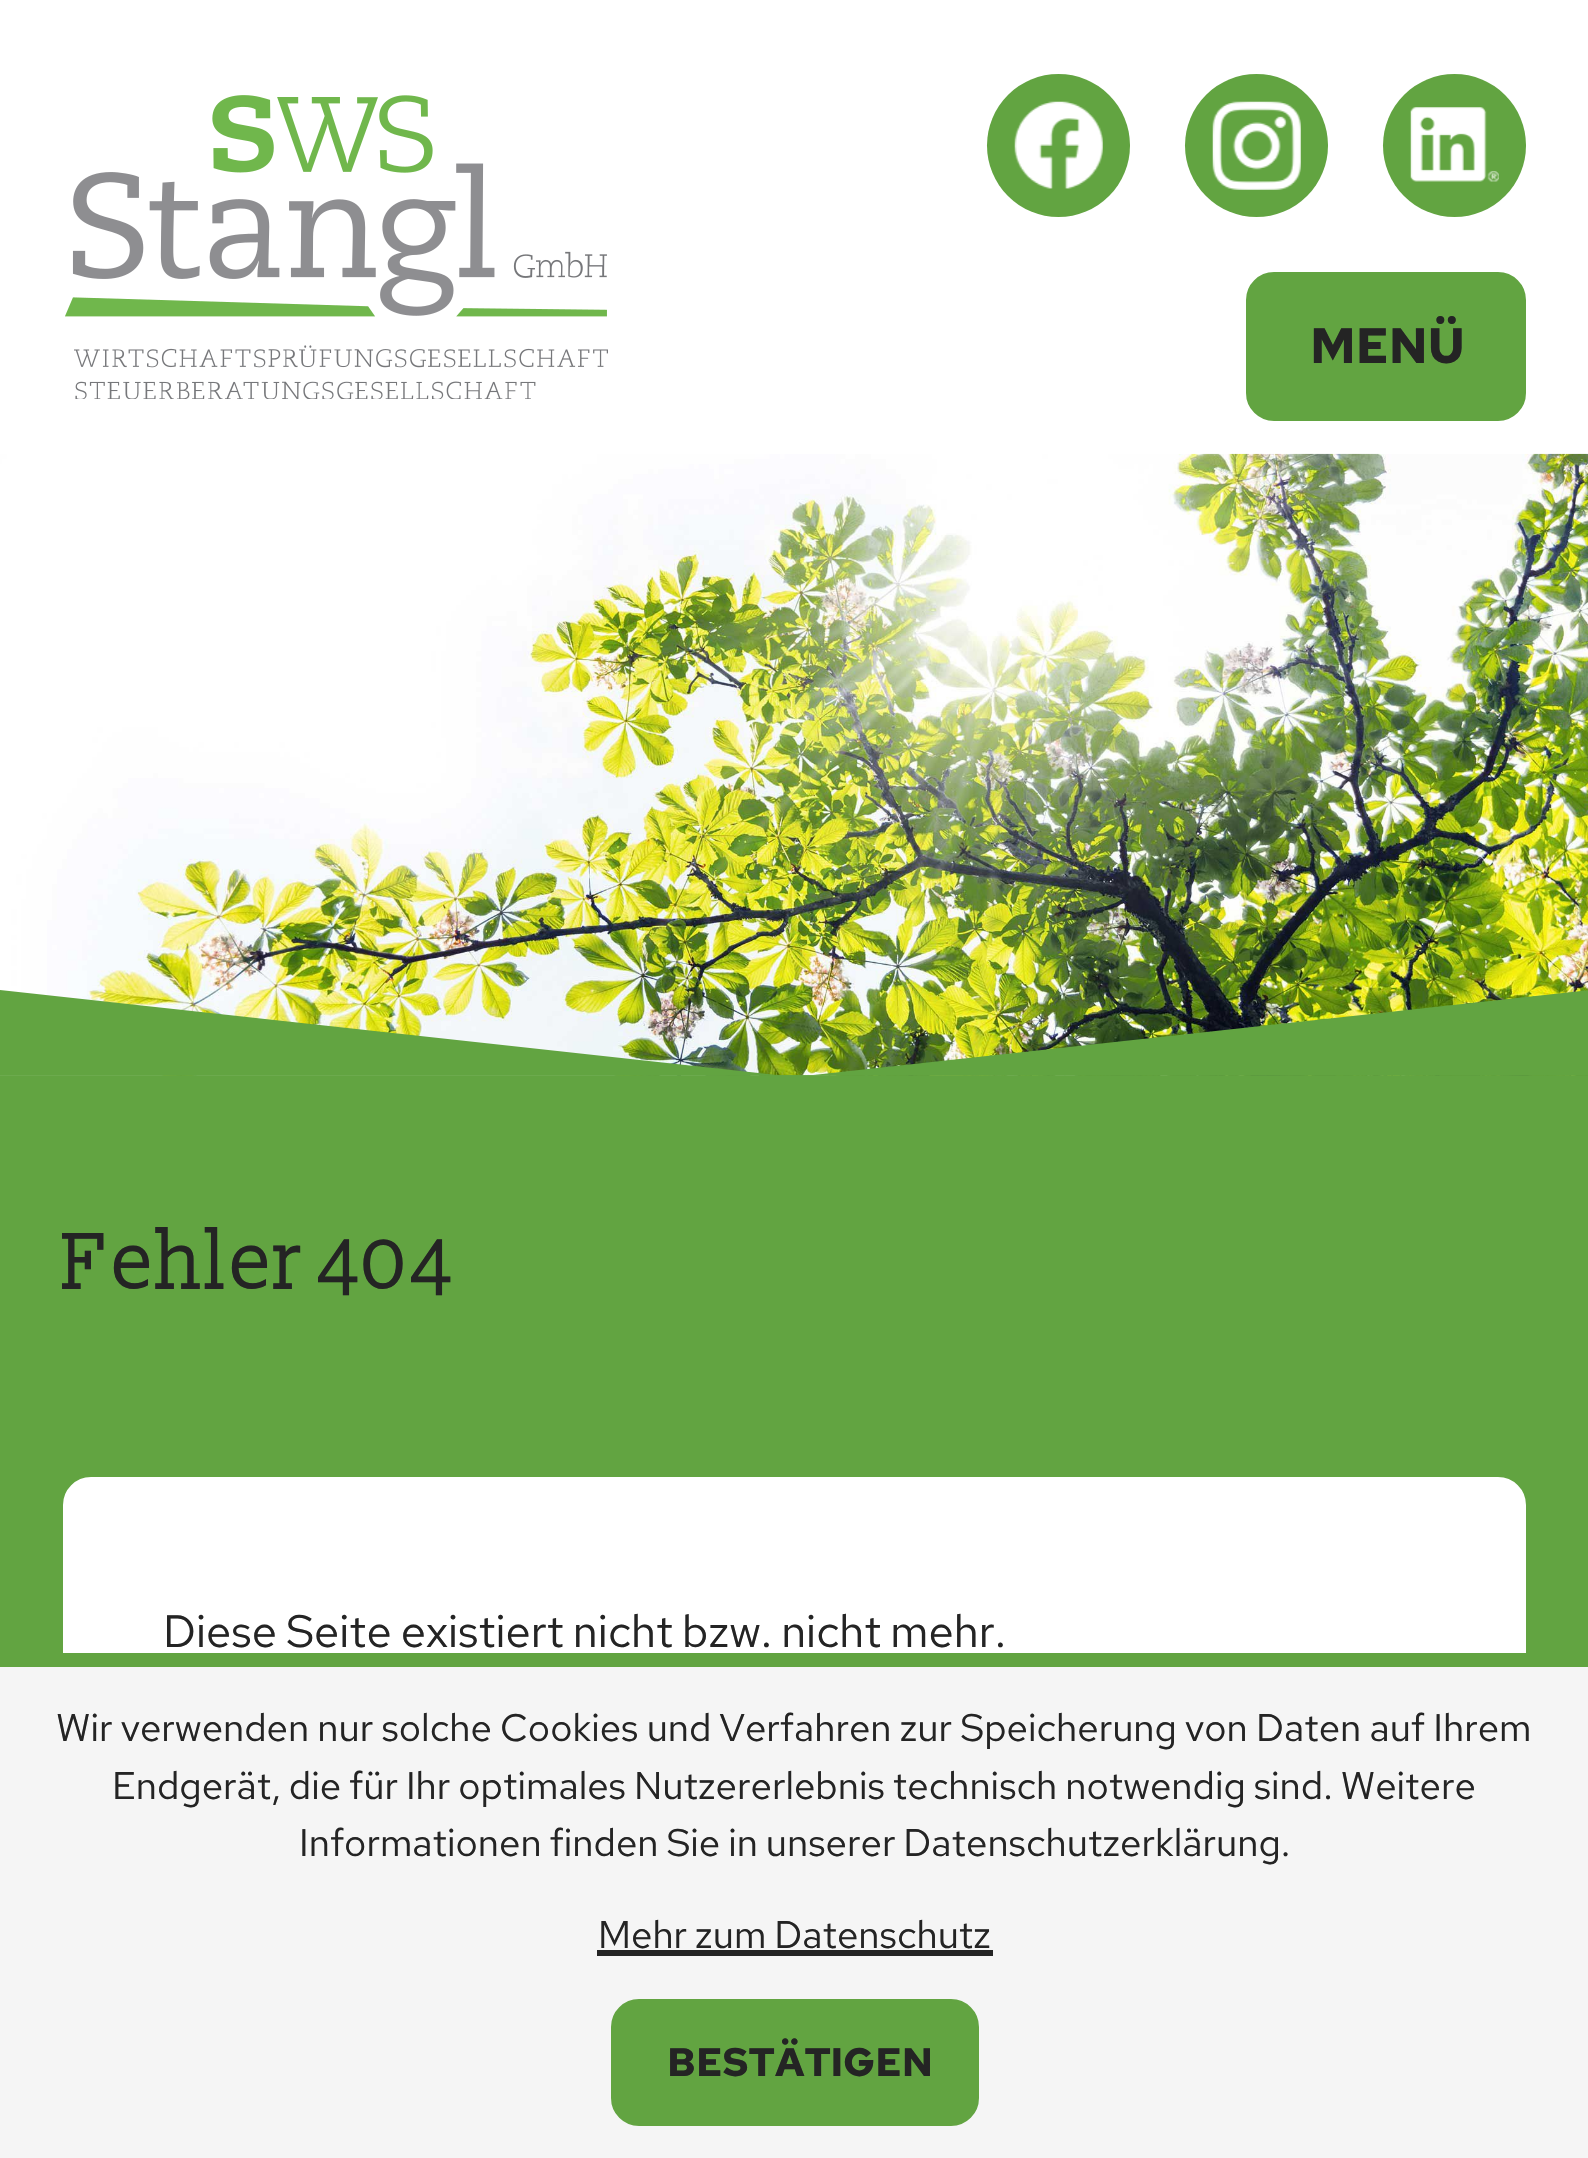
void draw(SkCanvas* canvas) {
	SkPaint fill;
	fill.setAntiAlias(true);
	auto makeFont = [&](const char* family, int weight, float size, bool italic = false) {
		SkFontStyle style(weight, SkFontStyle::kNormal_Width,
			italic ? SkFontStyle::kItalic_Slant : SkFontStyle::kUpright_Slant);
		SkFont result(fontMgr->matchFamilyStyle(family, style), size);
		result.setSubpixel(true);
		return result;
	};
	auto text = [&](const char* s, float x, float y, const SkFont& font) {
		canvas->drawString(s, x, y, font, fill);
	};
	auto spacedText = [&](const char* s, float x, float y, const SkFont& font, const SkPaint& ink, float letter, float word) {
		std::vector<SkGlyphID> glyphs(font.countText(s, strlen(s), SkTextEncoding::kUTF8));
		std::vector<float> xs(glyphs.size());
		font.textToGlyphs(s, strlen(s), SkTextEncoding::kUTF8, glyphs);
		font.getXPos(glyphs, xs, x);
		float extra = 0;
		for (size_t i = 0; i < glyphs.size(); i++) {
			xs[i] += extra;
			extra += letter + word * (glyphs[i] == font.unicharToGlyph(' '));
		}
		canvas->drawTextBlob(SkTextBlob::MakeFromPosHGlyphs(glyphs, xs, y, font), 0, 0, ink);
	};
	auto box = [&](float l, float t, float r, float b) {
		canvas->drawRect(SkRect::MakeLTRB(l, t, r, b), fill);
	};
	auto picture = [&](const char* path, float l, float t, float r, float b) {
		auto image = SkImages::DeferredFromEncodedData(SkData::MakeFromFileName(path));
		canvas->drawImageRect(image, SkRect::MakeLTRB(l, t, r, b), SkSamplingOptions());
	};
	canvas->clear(0xFFFFFFFF);
	fill.setColor(0xFF62A441);
	box(0, 1075, 1588, 1653);
	picture("image4.png", 0, 453, 1588, 1076);
	{
		const SkColor colors[] = {0x00FFFFFF, 0x4DFFFFFF, 0xCCFFFFFF, 0xE6FFFFFF, 0xFFFFFFFF};
		const float stops[] = {0, 0.15f, 0.3f, 0.45f, 0.79f};
		const SkPoint ends[] = {{795, 476}, {795, 0}};
		fill.setShader(SkGradientShader::MakeLinear(ends, colors, stops, 5, SkTileMode::kClamp));
		fill.setAlpha(255);
	}
	box(1179, 454, 1588, 471);
	picture("image0.png", 65, 95, 608, 399);
	fill.setShader(nullptr);
	fill.setColor(0xFF62A441);
	canvas->drawCircle(1058.5f, 145.5f, 71.5f, fill);
	picture("image1.png", 1014, 101, 1103, 189);
	canvas->drawCircle(1256.5f, 145.5f, 71.5f, fill);
	picture("image2.png", 1212, 101, 1301, 190);
	canvas->drawCircle(1454.5f, 145.5f, 71.5f, fill);
	picture("image3.png", 1410, 107, 1499, 182);
	canvas->drawRoundRect(SkRect::MakeLTRB(1249, 275, 1523, 418), 25, 25, fill);
	fill.setStyle(SkPaint::kStroke_Style);
	fill.setStrokeWidth(6);
	canvas->drawRoundRect(SkRect::MakeLTRB(1249, 275, 1523, 418), 25, 25, fill);
	canvas->save();
	canvas->clipRect(SkRect::MakeLTRB(0, 454, 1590, 1075));
	fill.setStyle(SkPaint::kFill_Style);
	canvas->drawPath(SkPathBuilder().moveTo(0, 990).lineTo(0, 1077).lineTo(795, 1077).close().detach(), fill);
	canvas->drawPath(SkPathBuilder().moveTo(795, 1077).lineTo(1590, 990).lineTo(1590, 1077).close().detach(), fill);
	canvas->restore();
	fill.setColor(0xFFFFFFFF);
	canvas->drawRoundRect(SkRect::MakeLTRB(67, 1481, 1522, 1885), 24, 24, fill);
	fill.setStyle(SkPaint::kStroke_Style);
	fill.setStrokeWidth(8);
	canvas->drawRoundRect(SkRect::MakeLTRB(67, 1481, 1522, 1885), 24, 24, fill);
	fill.setStyle(SkPaint::kFill_Style);
	fill.setColor(0xFFF5F5F5);
	box(0, 1667, 1588, 2158);
	fill.setColor(0xFF62A441);
	box(0, 1653, 1588, 1667);
	fill.setColor(0xFF242424);
	box(597, 1950, 993, 1956);
	fill.setColor(0xFF62A441);
	canvas->drawRoundRect(SkRect::MakeLTRB(614, 2002, 976, 2123), 25, 25, fill);
	fill.setStyle(SkPaint::kStroke_Style);
	fill.setStrokeWidth(6);
	canvas->drawRoundRect(SkRect::MakeLTRB(614, 2002, 976, 2123), 25, 25, fill);
	auto font1 = makeFont("Red Hat Text", 700, 49.5f);
	fill.setStyle(SkPaint::kFill_Style);
	fill.setColor(0xFF242424);
	text("MENÜ", 1310, 363, font1);
	auto font2 = makeFont("Slabo 13px", 400, 80.75f);
	spacedText("Fehler 404", 62, 1289, font2, fill, 0, -5);
	auto font3 = makeFont("Red Hat Text", 400, 45.25f);
	spacedText("Diese Seite existiert nicht bzw. nicht mehr.", 163, 1647, font3, fill, 0, -1.5f);
	auto font4 = makeFont("Red Hat Text", 400, 38.4f);
	spacedText("Wir verwenden nur solche Cookies und Verfahren zur Speicherung von Daten auf Ihrem", 56, 1741, font4, fill, 0, -0.75f);
	spacedText("Endgerät, die für Ihr optimales Nutzererlebnis technisch notwendig sind. Weitere", 112, 1799, font4, fill, 0, -1);
	spacedText("Informationen finden Sie in unserer Datenschutzerklärung.", 299, 1856, font4, fill, 0, -1);
	spacedText("Mehr zum Datenschutz", 598, 1948, font4, fill, 0, -1);
	auto font5 = makeFont("Red Hat Text", 700, 39.75f);
	text("BESTÄTIGEN", 667, 2076, font5);
}
